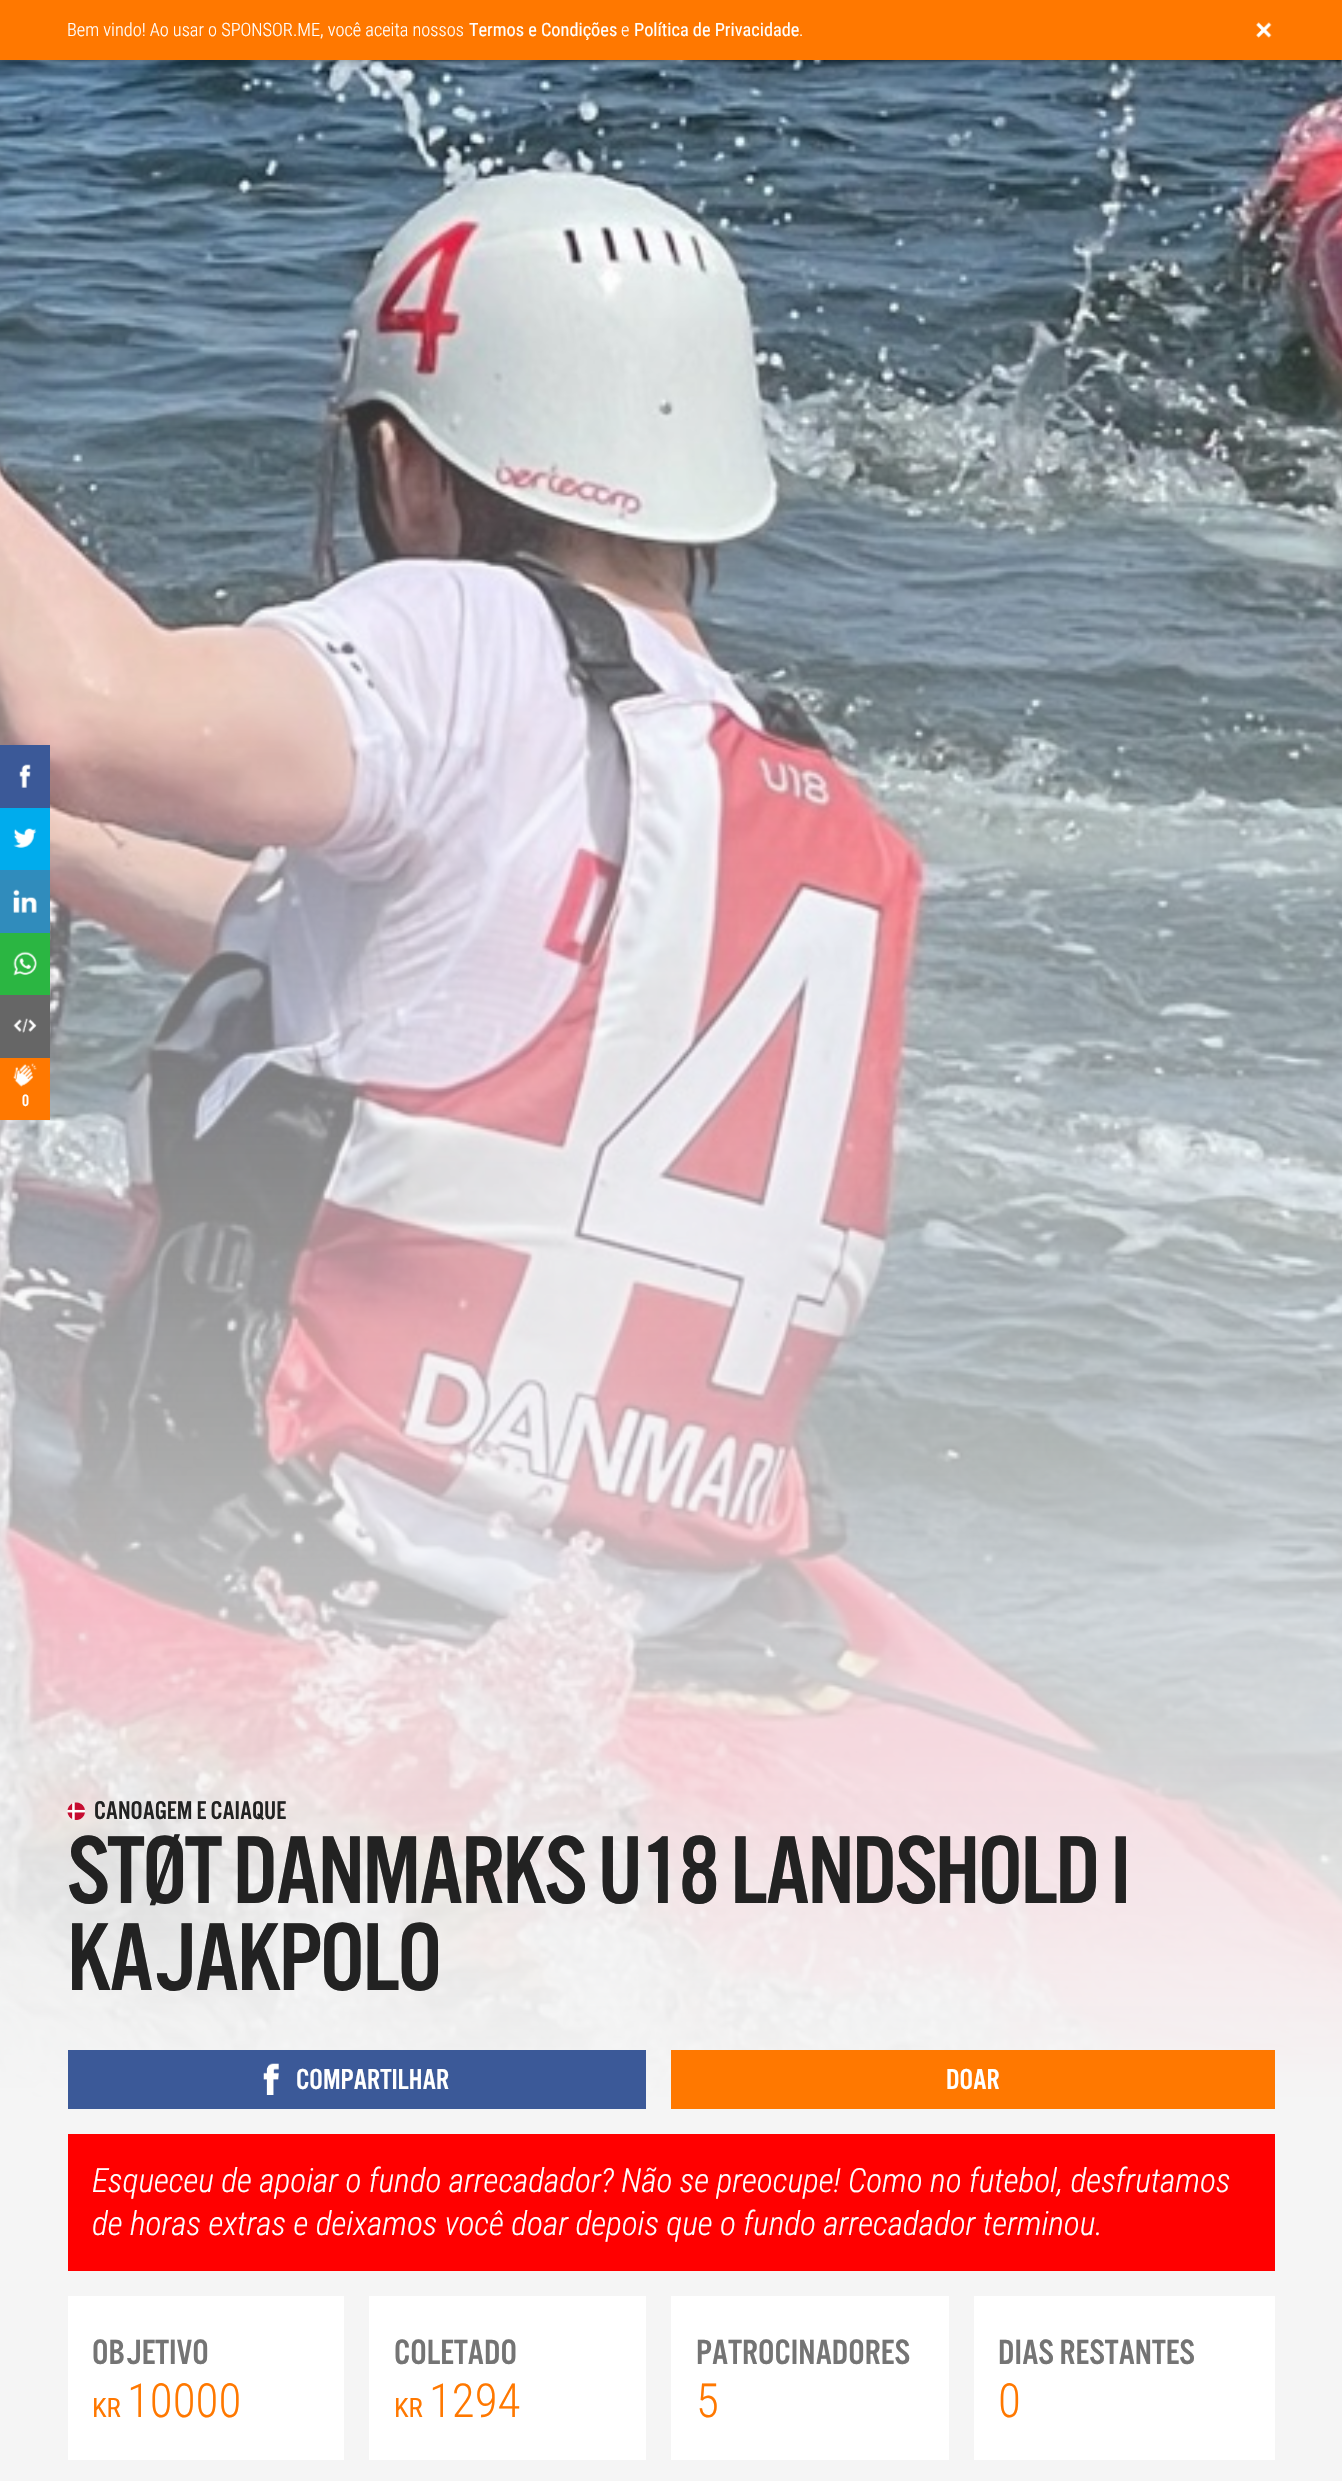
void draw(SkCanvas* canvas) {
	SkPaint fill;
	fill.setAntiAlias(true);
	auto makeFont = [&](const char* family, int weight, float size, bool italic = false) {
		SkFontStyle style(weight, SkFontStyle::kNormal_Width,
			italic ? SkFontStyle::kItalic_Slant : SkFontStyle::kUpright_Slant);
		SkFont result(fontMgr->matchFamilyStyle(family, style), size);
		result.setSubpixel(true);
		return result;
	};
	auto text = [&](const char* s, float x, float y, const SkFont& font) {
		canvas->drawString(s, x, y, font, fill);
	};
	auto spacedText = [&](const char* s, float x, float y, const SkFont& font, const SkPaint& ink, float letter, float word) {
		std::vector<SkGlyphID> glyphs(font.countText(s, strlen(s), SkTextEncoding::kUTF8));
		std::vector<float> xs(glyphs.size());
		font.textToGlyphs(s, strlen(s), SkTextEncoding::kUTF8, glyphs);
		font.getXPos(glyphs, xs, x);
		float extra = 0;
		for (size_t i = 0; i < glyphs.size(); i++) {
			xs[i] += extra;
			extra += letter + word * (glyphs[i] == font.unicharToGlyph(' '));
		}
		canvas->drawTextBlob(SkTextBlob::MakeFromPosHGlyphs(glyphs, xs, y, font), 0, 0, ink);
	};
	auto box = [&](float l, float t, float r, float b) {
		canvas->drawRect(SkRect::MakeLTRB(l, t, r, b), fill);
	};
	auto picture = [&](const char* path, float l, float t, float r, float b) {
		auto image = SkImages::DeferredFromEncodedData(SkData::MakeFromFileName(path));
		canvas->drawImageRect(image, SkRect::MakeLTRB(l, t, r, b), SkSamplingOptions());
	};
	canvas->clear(0xFFF5F5F5);
	picture("image7.png", 0, 60, 1342, 2097);
	{
		const SkColor colors[] = {0x00F5F5F5, 0xFFF5F5F5};
		const float stops[] = {0, 1};
		const SkPoint ends[] = {{671, 0}, {671, 2109}};
		fill.setShader(SkGradientShader::MakeLinear(ends, colors, stops, 2, SkTileMode::kClamp));
		fill.setAlpha(255);
	}
	box(0, 60, 1342, 2097);
	{
		const SkColor colors[] = {0xE6000000, 0x00000000};
		const float stops[] = {0, 1};
		const SkPoint ends[] = {{671, 0}, {671, 69}};
		fill.setShader(SkGradientShader::MakeLinear(ends, colors, stops, 2, SkTileMode::kClamp));
		fill.setAlpha(255);
	}
	box(0, 60, 1342, 67);
	fill.setShader(nullptr);
	fill.setColor(0x33000000);
	fill.setMaskFilter(SkMaskFilter::MakeBlur(kNormal_SkBlurStyle, 2.5f));
	canvas->drawRect(SkRect::MakeLTRB(0, 1, 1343, 61), fill);
	fill.setMaskFilter(nullptr);
	fill.setColor(0xFFFF7800);
	box(0, 0, 1342, 60);
	picture("image0.png", 1256, 22, 1272, 38);
	fill.setColor(0xFF3B5998);
	box(0, 745, 50, 808);
	picture("image1.png", 19, 764, 31, 788);
	fill.setColor(0xFF00ACED);
	box(0, 808, 50, 870);
	picture("image2.png", 13, 828, 37, 848);
	fill.setColor(0xFF308CBC);
	box(0, 870, 50, 933);
	picture("image3.png", 13, 889, 37, 913);
	fill.setColor(0xFF2BB642);
	box(0, 933, 50, 995);
	picture("image4.png", 13, 951, 37, 976);
	fill.setColor(0xFF666666);
	box(0, 995, 50, 1058);
	picture("image5.png", 13, 1018, 37, 1033);
	fill.setColor(0xFFFF7800);
	box(0, 1058, 50, 1120);
	picture("image6.png", 13, 1063, 37, 1087);
	fill.setColor(0xFFFF0000);
	box(68, 2134, 1275, 2271);
	fill.setColor(0xFFFFFFFF);
	box(68, 2296, 344, 2460);
	box(369, 2296, 646, 2460);
	box(671, 2296, 949, 2460);
	box(974, 2296, 1275, 2460);
	picture("image8.png", 67, 1802, 85, 1820);
	fill.setColor(0xFF3B5998);
	box(68, 2050, 646, 2109);
	picture("image9.png", 263, 2063, 279, 2095);
	fill.setColor(0xFFFF7800);
	box(671, 2050, 1275, 2109);
	auto font1 = makeFont("Roboto Condensed", 300, 18.3f);
	fill.setColor(0xFFFFFFFF);
	text("Bem vindo! Ao usar o SPONSOR.ME, você aceita nossos", 67, 36, font1);
	auto font2 = makeFont("Roboto Condensed", 400, 18.3f);
	text("Termos e Condições", 469, 36, font2);
	text("e", 621, 36, font1);
	text("Política de Privacidade", 634, 36, font2);
	text(".", 799, 36, font1);
	auto font3 = makeFont("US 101", 400, 17);
	text("0", 22, 1106, font3);
	auto font4 = makeFont("Roboto Condensed", 300, 33.35f, true);
	text("Esqueceu de apoiar o fundo arrecadador? Não se preocupe! Como no futebol, desfrutamos", 92, 2192, font4);
	text("de horas extras e deixamos você doar depois que o fundo arrecadador terminou.", 92, 2235, font4);
	auto font5 = makeFont("US 101", 400, 36.5f);
	fill.setColor(0xFF747474);
	text("OBJETIVO", 92, 2364, font5);
	auto font6 = makeFont("Roboto Condensed", 400, 26.75f);
	fill.setColor(0xFFFF7800);
	text("KR", 92, 2417, font6);
	auto font7 = makeFont("Roboto Condensed", 300, 47);
	text("10000", 127, 2417, font7);
	fill.setColor(0xFF747474);
	text("COLETADO", 394, 2364, font5);
	fill.setColor(0xFFFF7800);
	text("KR", 394, 2417, font6);
	text("1294", 429, 2417, font7);
	fill.setColor(0xFF747474);
	text("PATROCINADORES", 696, 2364, font5);
	fill.setColor(0xFFFF7800);
	text("5", 696, 2417, font7);
	fill.setColor(0xFF747474);
	text("DIAS RESTANTES", 998, 2364, font5);
	fill.setColor(0xFFFF7800);
	text("0", 998, 2417, font7);
	auto font8 = makeFont("US 101", 400, 26.75f);
	fill.setColor(0xFF222222);
	text("CANOAGEM E CAIAQUE", 94, 1819, font8);
	auto font9 = makeFont("US 101", 400, 100);
	spacedText("STØT DANMARKS U18 LANDSHOLD I", 67, 1903, font9, fill, -2.5f, 0);
	spacedText("KAJAKPOLO", 67, 1990, font9, fill, -2.5f, 0);
	auto font10 = makeFont("US 101", 400, 30);
	fill.setColor(0xFFFFFFFF);
	text("COMPARTILHAR", 296, 2089, font10);
	text("DOAR", 946, 2089, font10);
}
